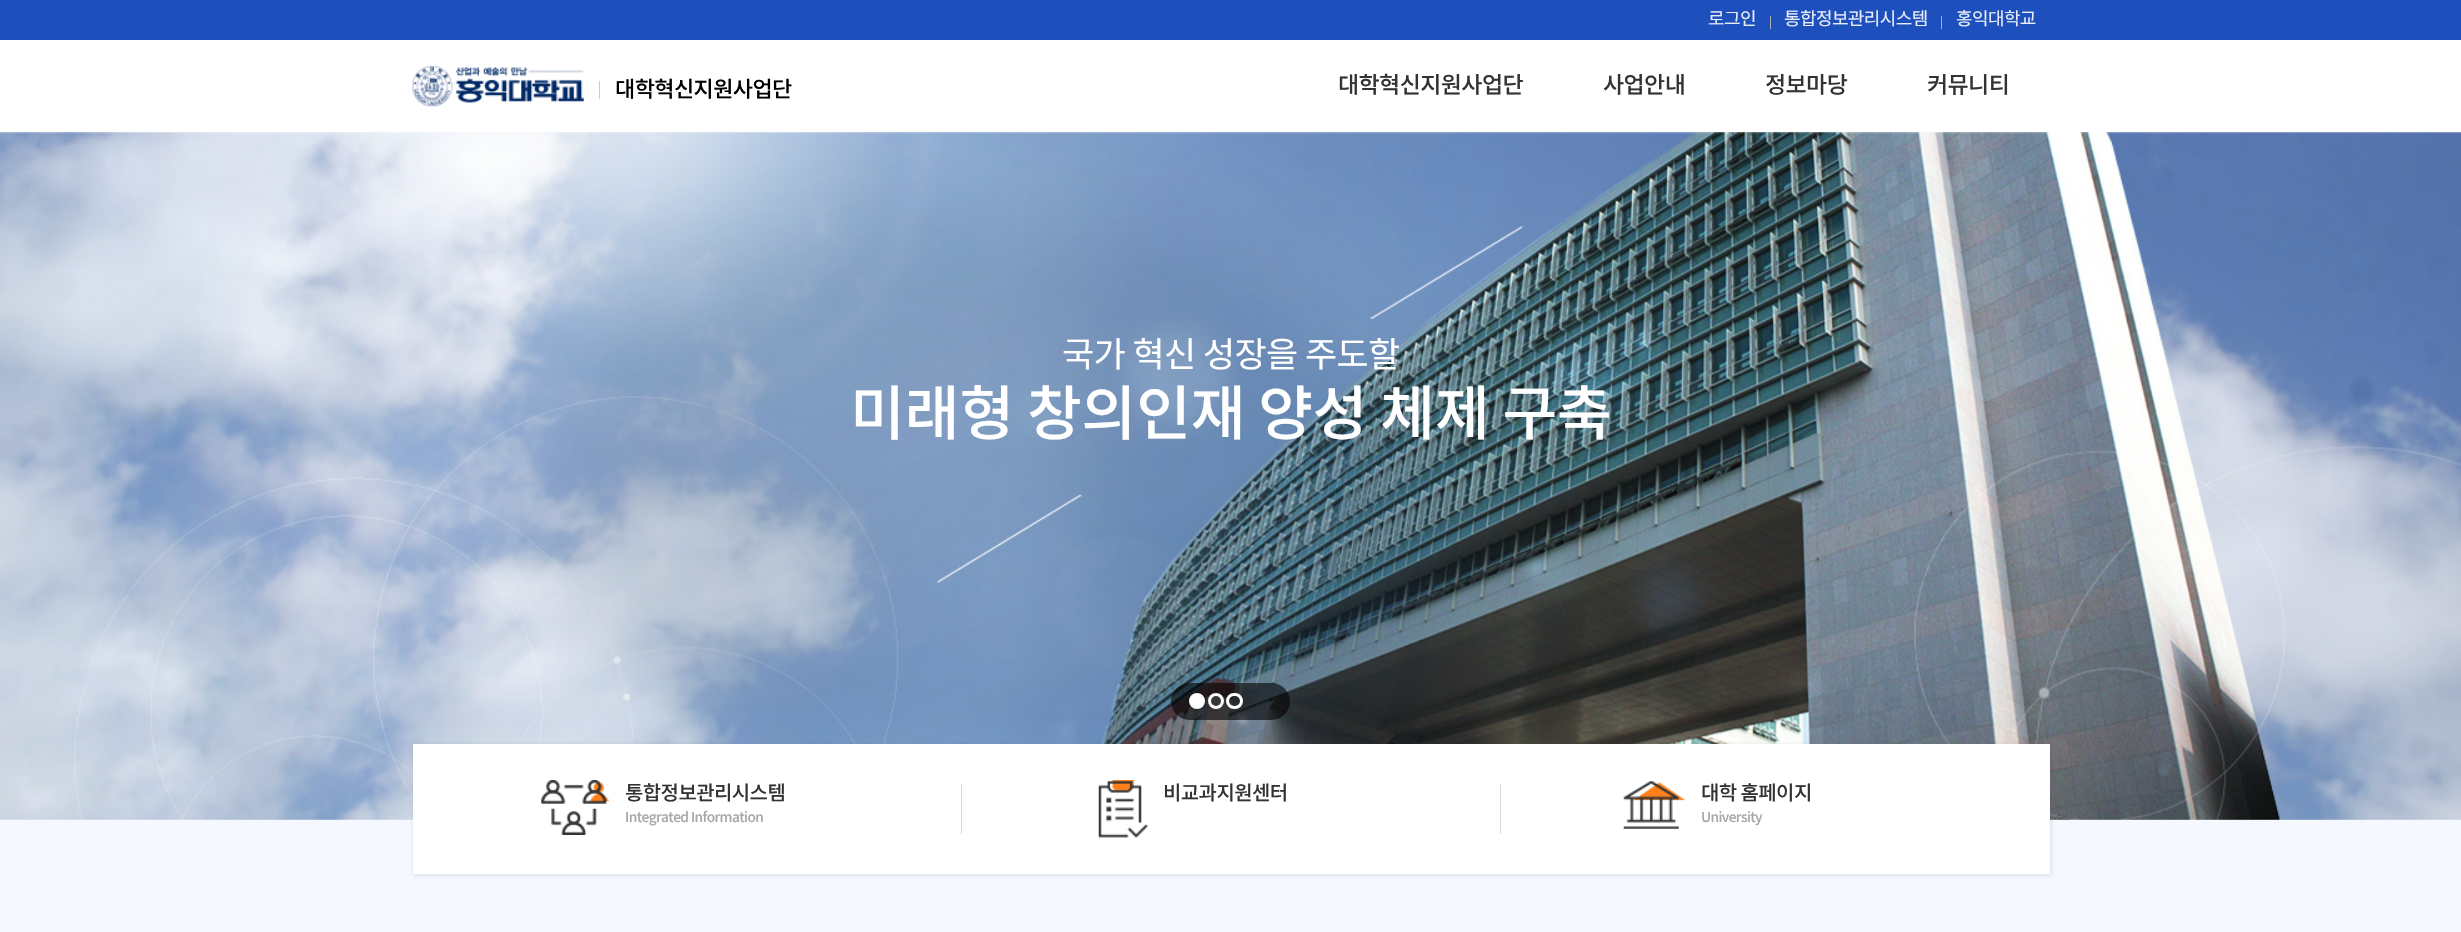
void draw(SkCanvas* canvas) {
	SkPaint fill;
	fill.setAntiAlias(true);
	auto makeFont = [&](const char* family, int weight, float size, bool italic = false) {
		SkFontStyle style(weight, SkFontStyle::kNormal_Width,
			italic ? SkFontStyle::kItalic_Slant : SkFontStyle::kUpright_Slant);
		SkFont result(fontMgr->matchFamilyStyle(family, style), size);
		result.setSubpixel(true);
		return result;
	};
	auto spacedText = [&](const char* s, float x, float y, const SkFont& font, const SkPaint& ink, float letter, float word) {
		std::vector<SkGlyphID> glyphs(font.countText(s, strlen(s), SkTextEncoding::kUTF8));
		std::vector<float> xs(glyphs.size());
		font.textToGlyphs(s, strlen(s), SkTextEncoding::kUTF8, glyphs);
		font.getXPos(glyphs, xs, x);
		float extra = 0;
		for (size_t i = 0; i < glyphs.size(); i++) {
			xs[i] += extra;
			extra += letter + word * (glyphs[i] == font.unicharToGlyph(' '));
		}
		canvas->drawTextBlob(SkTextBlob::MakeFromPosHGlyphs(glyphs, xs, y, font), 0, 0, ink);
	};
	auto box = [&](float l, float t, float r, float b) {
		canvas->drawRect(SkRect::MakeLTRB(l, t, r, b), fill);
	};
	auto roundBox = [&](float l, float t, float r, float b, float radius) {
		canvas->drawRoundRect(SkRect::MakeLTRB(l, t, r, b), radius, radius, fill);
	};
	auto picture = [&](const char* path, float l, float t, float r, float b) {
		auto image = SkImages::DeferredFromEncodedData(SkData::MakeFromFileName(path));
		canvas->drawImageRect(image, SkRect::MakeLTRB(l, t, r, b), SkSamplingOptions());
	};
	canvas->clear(0xFFFFFFFF);
	fill.setColor(0xFF1D50BD);
	box(0, 0, 2461, 40);
	fill.setColor(0xFFA9ADB9);
	box(1770, 16, 1771, 29);
	box(1941, 16, 1942, 29);
	picture("image0.png", 412, 66, 584, 107);
	fill.setColor(0xFFCCCCCC);
	box(599, 81, 600, 99);
	picture("image1.png", 0, 132, 2461, 820);
	fill.setColor(0x99000000);
	roundBox(1171, 683, 1290, 720, 18.5f);
	fill.setColor(0xFFFFFFFF);
	canvas->drawCircle(1197, 701, 6.5f, fill);
	fill.setStyle(SkPaint::kStroke_Style);
	fill.setStrokeWidth(3);
	canvas->drawCircle(1197, 701, 6.5f, fill);
	canvas->drawCircle(1216, 701, 6.5f, fill);
	canvas->drawRoundRect(SkRect::MakeLTRB(1227.5f, 694.5f, 1241.5f, 707.5f), 6.5f, 6.5f, fill);
	picture("image2.png", 937, 226, 1523, 583);
	fill.setStyle(SkPaint::kFill_Style);
	fill.setColor(0xFFF5F8FF);
	box(0, 820, 2461, 932);
	fill.setColor(0x335E6169);
	fill.setMaskFilter(SkMaskFilter::MakeBlur(kNormal_SkBlurStyle, 2.5f));
	canvas->drawRect(SkRect::MakeLTRB(414, 745, 2051, 875), fill);
	fill.setMaskFilter(nullptr);
	fill.setColor(0xFFFFFFFF);
	box(413, 744, 2050, 874);
	picture("image3.png", 541, 780, 609, 835);
	fill.setColor(0xFFD9D9D9);
	box(961, 784, 962, 834);
	picture("image4.png", 1098, 780, 1148, 838);
	box(1500, 784, 1501, 834);
	picture("image5.png", 1623, 781, 1685, 829);
	auto font1 = makeFont("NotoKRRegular", 400, 18);
	fill.setColor(0xFFE7ECF7);
	spacedText("로그인", 1708, 25, font1, fill, -0.6f, 0);
	spacedText("통합정보관리시스템", 1784, 25, font1, fill, -0.6f, 0);
	spacedText("홍익대학교", 1956, 25, font1, fill, -0.6f, 0);
	auto font2 = makeFont("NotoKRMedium", 500, 22);
	fill.setColor(0xFF000000);
	spacedText("대학혁신지원사업단", 615, 97, font2, fill, -0.6f, 0);
	auto font3 = makeFont("NotoKRMedium", 500, 23);
	fill.setColor(0xFF333333);
	spacedText("대학혁신지원사업단", 1338, 93, font3, fill, -0.6f, 0);
	spacedText("사업안내", 1603, 93, font3, fill, -0.6f, 0);
	spacedText("정보마당", 1765, 93, font3, fill, -0.6f, 0);
	spacedText("커뮤니티", 1927, 93, font3, fill, -0.6f, 0);
	auto font4 = makeFont("NotoKRRegular", 400, 35);
	fill.setColor(0xFFFFFFFF);
	spacedText("국가 혁신 성장을 주도할", 1062, 367, font4, fill, -0.6f, 0);
	auto font5 = makeFont("NotoKRMedium", 500, 60);
	spacedText("미래형 창의인재 양성 체제 구축", 850, 435, font5, fill, -0.6f, 0);
	auto font6 = makeFont("NotoKRMedium", 500, 20);
	fill.setColor(0xFF333333);
	spacedText("통합정보관리시스템", 625, 800, font6, fill, -0.6f, 0);
	auto font7 = makeFont("NotoKRMedium", 500, 13.75f);
	fill.setColor(0xFFA6A6A6);
	spacedText("Integrated Information", 625, 822, font7, fill, -0.6f, 0);
	fill.setColor(0xFF333333);
	spacedText("비교과지원센터", 1163, 800, font6, fill, -0.6f, 0);
	spacedText("대학 홈페이지", 1701, 800, font6, fill, -0.6f, 0);
	fill.setColor(0xFFA6A6A6);
	spacedText("University", 1701, 822, font7, fill, -0.6f, 0);
}
